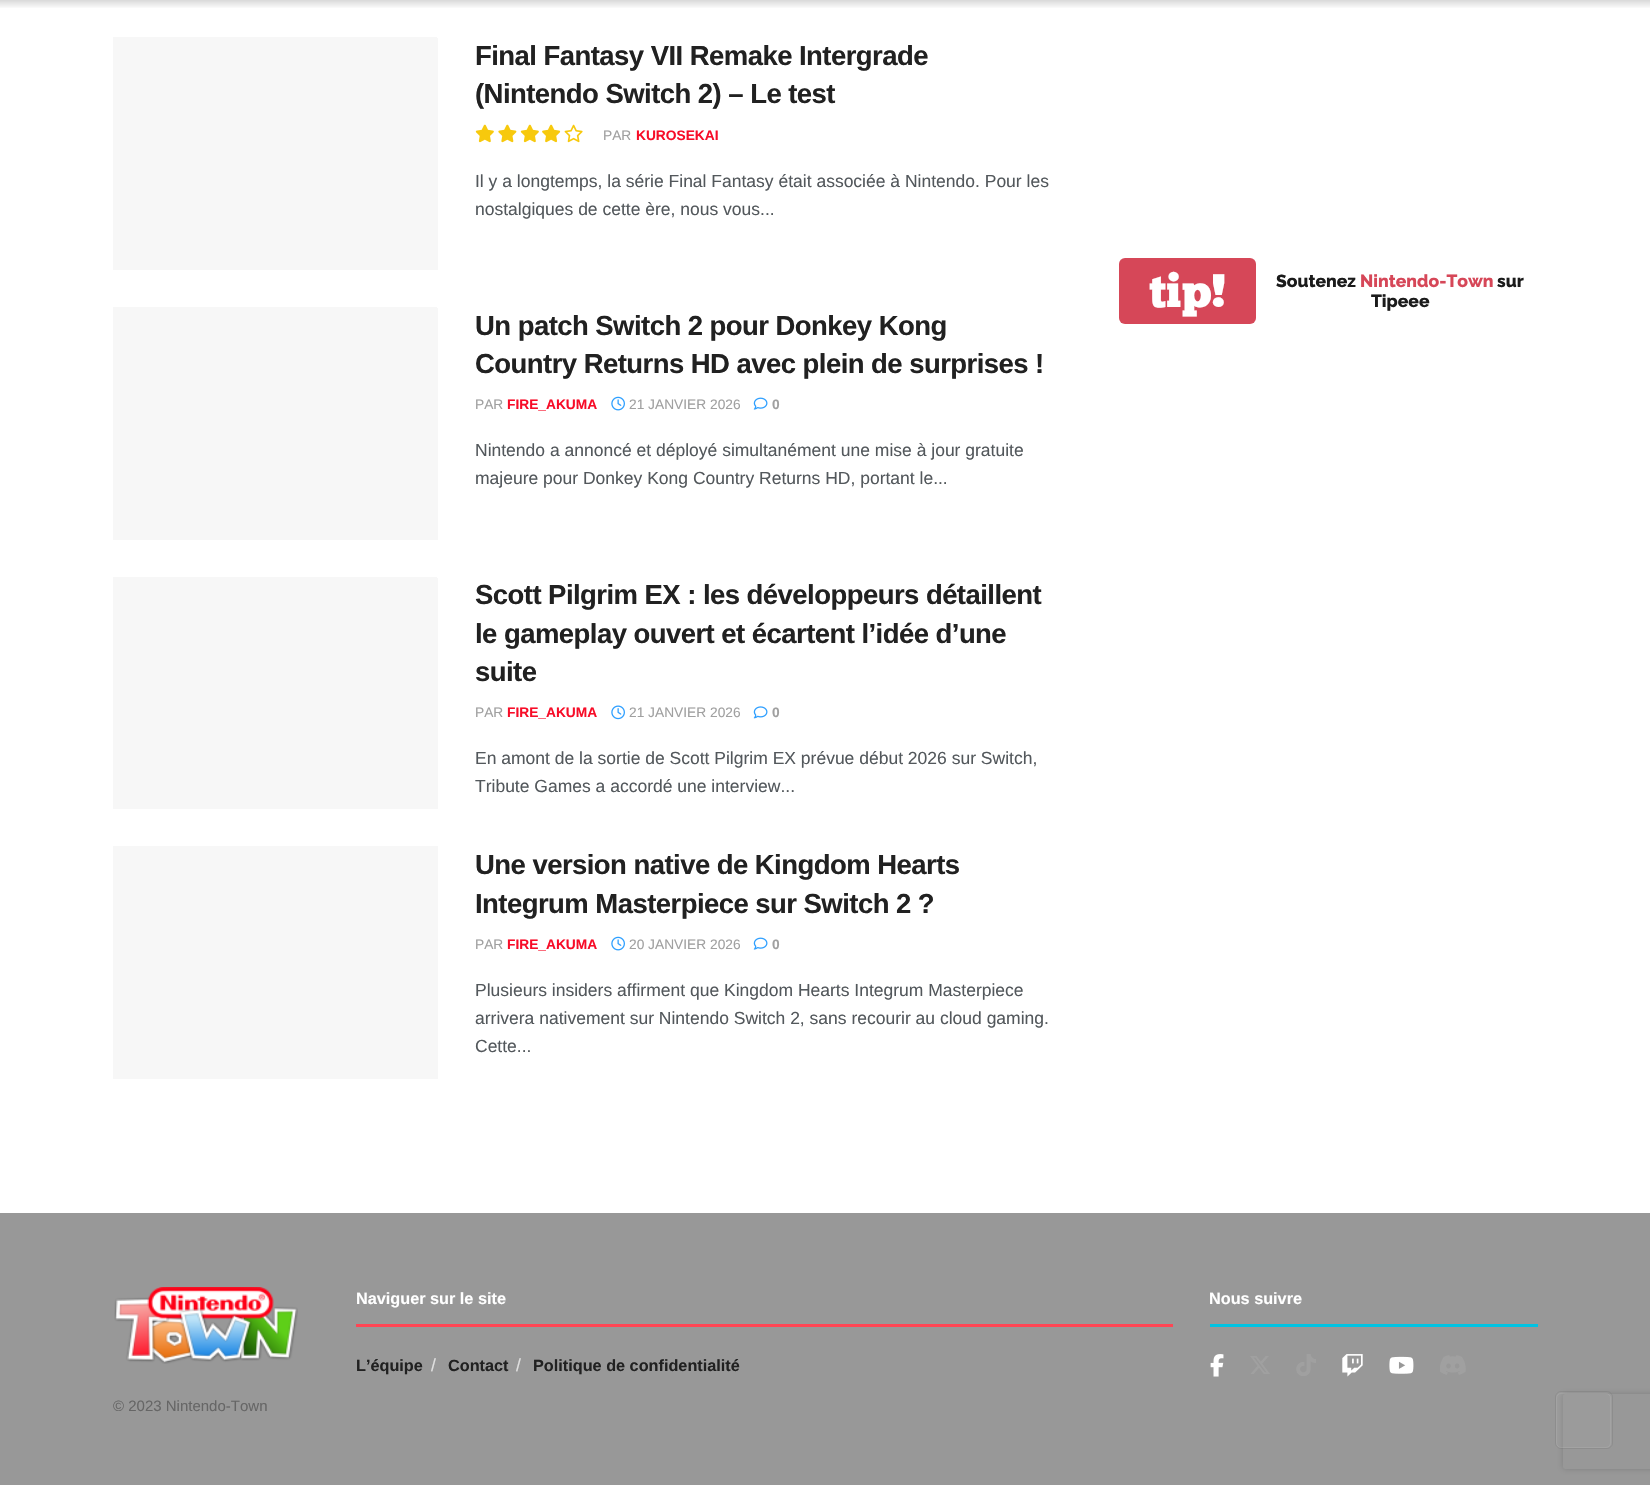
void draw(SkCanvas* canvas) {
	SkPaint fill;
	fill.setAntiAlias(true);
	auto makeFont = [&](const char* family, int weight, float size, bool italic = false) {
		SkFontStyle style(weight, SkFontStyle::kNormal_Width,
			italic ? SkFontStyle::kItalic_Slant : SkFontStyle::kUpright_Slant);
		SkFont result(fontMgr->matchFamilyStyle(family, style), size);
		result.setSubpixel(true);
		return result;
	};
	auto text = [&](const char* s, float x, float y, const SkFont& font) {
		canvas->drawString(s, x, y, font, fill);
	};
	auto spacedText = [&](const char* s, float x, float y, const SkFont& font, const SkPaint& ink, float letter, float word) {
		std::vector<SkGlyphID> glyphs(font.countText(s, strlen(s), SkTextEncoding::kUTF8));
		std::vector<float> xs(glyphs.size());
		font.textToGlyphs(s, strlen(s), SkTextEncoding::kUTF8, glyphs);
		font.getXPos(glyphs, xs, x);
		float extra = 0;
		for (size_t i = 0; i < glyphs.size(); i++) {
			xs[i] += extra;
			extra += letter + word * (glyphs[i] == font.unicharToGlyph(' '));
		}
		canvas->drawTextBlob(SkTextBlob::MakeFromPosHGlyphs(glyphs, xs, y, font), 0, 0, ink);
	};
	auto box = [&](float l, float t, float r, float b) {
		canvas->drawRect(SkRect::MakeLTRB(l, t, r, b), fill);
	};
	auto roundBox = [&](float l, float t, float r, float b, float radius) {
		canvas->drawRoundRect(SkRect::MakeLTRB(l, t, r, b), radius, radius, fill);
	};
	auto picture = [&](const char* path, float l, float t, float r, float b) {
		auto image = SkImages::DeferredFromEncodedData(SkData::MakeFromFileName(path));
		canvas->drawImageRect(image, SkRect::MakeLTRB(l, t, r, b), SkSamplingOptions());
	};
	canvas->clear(0xFFFFFFFF);
	{
		const SkColor colors[] = {0xFFD9D9D9, 0xFFFFFFFF};
		const float stops[] = {0, 1};
		const SkPoint ends[] = {{825, 0}, {825, 9}};
		fill.setShader(SkGradientShader::MakeLinear(ends, colors, stops, 2, SkTileMode::kClamp));
		fill.setAlpha(255);
	}
	box(0, 0, 1650, 8);
	fill.setShader(nullptr);
	fill.setColor(0xFFF7F7F7);
	box(113, 38, 438, 270);
	box(113, 37, 437, 38);
	picture("image0.png", 475, 124, 494, 143);
	picture("image1.png", 498, 124, 517, 143);
	picture("image0.png", 520, 124, 539, 143);
	picture("image2.png", 542, 124, 561, 143);
	picture("image3.png", 564, 124, 583, 143);
	box(113, 308, 438, 540);
	box(113, 307, 437, 308);
	picture("image4.png", 611, 396, 625, 411);
	picture("image5.png", 753, 397, 768, 410);
	box(113, 578, 438, 809);
	box(113, 577, 437, 578);
	picture("image6.png", 611, 705, 625, 720);
	picture("image7.png", 753, 706, 768, 719);
	box(113, 846, 438, 1079);
	picture("image4.png", 611, 936, 625, 951);
	picture("image5.png", 753, 937, 768, 950);
	fill.setColor(0xFFD64758);
	roundBox(1119, 258, 1256, 324, 6);
	fill.setColor(0xFF989898);
	box(0, 1213, 1650, 1485);
	fill.setColor(0xFFFF4554);
	box(356, 1324, 1173, 1327);
	fill.setColor(0xFF00C3E3);
	box(1210, 1324, 1538, 1327);
	picture("image8.png", 1210, 1354, 1224, 1377);
	picture("image9.png", 1250, 1356, 1270, 1374);
	picture("image10.png", 1296, 1354, 1316, 1376);
	picture("image11.png", 1342, 1354, 1363, 1377);
	picture("image12.png", 1389, 1356, 1414, 1374);
	picture("image13.png", 1440, 1355, 1466, 1375);
	picture("image14.png", 114, 1287, 298, 1364);
	canvas->save();
	canvas->clipPath(SkPathBuilder(SkPathFillType::kEvenOdd).moveTo(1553, 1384).lineTo(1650, 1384).lineTo(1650, 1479).lineTo(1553, 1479).close().moveTo(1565.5f, 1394).lineTo(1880.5f, 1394).cubicTo(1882, 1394, 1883, 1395, 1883, 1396.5f).lineTo(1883, 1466.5f).cubicTo(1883, 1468, 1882, 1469, 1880.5f, 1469).lineTo(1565.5f, 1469).cubicTo(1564, 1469, 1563, 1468, 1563, 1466.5f).lineTo(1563, 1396.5f).cubicTo(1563, 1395, 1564, 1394, 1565.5f, 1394).close().detach(), true);
	fill.setColor(0xFF808080);
	fill.setMaskFilter(SkMaskFilter::MakeBlur(kNormal_SkBlurStyle, 3));
	canvas->drawRoundRect(SkRect::MakeLTRB(1563, 1394, 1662, 1469), 2.5f, 2.5f, fill);
	fill.setMaskFilter(nullptr);
	canvas->restore();
	fill.setColor(0x1FB4B4B4);
	roundBox(1555, 1391, 1613, 1449, 6);
	fill.setStyle(SkPaint::kStroke_Style);
	fill.setStrokeWidth(1);
	fill.setColor(0x14FFFFFF);
	canvas->drawRoundRect(SkRect::MakeLTRB(1556.5f, 1393.5f, 1610.5f, 1447.5f), 4.5f, 4.5f, fill);
	fill.setColor(0x17000000);
	canvas->drawRoundRect(SkRect::MakeLTRB(1555.5f, 1391.5f, 1612.5f, 1448.5f), 5.5f, 5.5f, fill);
	auto font1 = makeFont("Liberation Sans", 700, 27.5f);
	fill.setStyle(SkPaint::kFill_Style);
	fill.setColor(0xFF212121);
	spacedText("Final Fantasy VII Remake Intergrade", 475, 65, font1, fill, -0.55f, 0);
	spacedText("(Nintendo Switch 2) – Le test", 475, 103, font1, fill, -0.55f, 0);
	auto font2 = makeFont("Liberation Sans", 400, 13.75f);
	fill.setColor(0xFFA0A0A0);
	text("PAR", 603, 140, font2);
	auto font3 = makeFont("Liberation Sans", 700, 13.75f);
	fill.setColor(0xFFF70D28);
	text("KUROSEKAI", 636, 140, font3);
	auto font4 = makeFont("Liberation Sans", 400, 17.5f);
	fill.setColor(0xFF53585C);
	text("Il y a longtemps, la série Final Fantasy était associée à Nintendo. Pour les", 475, 187, font4);
	text("nostalgiques de cette ère, nous vous...", 475, 215, font4);
	fill.setColor(0xFF212121);
	spacedText("Un patch Switch 2 pour Donkey Kong", 475, 335, font1, fill, -0.55f, 0);
	spacedText("Country Returns HD avec plein de surprises !", 475, 373, font1, fill, -0.55f, 0);
	fill.setColor(0xFFA0A0A0);
	text("PAR", 475, 409, font2);
	fill.setColor(0xFFF70D28);
	text("FIRE_AKUMA", 507, 409, font3);
	fill.setColor(0xFFA0A0A0);
	text("21 JANVIER 2026", 629, 409, font2);
	text("0", 772, 409, font3);
	fill.setColor(0xFF53585C);
	text("Nintendo a annoncé et déployé simultanément une mise à jour gratuite", 475, 456, font4);
	text("majeure pour Donkey Kong Country Returns HD, portant le...", 475, 484, font4);
	fill.setColor(0xFF212121);
	spacedText("Scott Pilgrim EX : les développeurs détaillent", 475, 604, font1, fill, -0.55f, 0);
	spacedText("le gameplay ouvert et écartent l’idée d’une", 475, 643, font1, fill, -0.55f, 0);
	spacedText("suite", 475, 681, font1, fill, -0.55f, 0);
	fill.setColor(0xFFA0A0A0);
	text("PAR", 475, 717, font2);
	fill.setColor(0xFFF70D28);
	text("FIRE_AKUMA", 507, 717, font3);
	fill.setColor(0xFFA0A0A0);
	text("21 JANVIER 2026", 629, 717, font2);
	text("0", 772, 717, font3);
	fill.setColor(0xFF53585C);
	text("En amont de la sortie de Scott Pilgrim EX prévue début 2026 sur Switch,", 475, 764, font4);
	text("Tribute Games a accordé une interview...", 475, 792, font4);
	fill.setColor(0xFF212121);
	spacedText("Une version native de Kingdom Hearts", 475, 874, font1, fill, -0.55f, 0);
	spacedText("Integrum Masterpiece sur Switch 2 ?", 475, 913, font1, fill, -0.55f, 0);
	fill.setColor(0xFFA0A0A0);
	text("PAR", 475, 949, font2);
	fill.setColor(0xFFF70D28);
	text("FIRE_AKUMA", 507, 949, font3);
	fill.setColor(0xFFA0A0A0);
	text("20 JANVIER 2026", 629, 949, font2);
	text("0", 772, 949, font3);
	fill.setColor(0xFF53585C);
	text("Plusieurs insiders affirment que Kingdom Hearts Integrum Masterpiece", 475, 996, font4);
	text("arrivera nativement sur Nintendo Switch 2, sans recourir au cloud gaming.", 475, 1024, font4);
	text("Cette...", 475, 1052, font4);
	auto font5 = makeFont("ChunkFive", 400, 47);
	fill.setColor(0xFFFFFFFF);
	text("tip!", 1149, 307, font5);
	auto font6 = makeFont("Raleway", 100, 17.5f);
	fill.setColor(0xFF1B1B1B);
	text("Soutenez", 1276, 287, font6);
	fill.setColor(0xFFD64758);
	text("Nintendo-Town", 1360, 287, font6);
	fill.setColor(0xFF1B1B1B);
	text("sur", 1497, 287, font6);
	text("Tipeee", 1371, 307, font6);
	auto font7 = makeFont("Liberation Sans", 700, 16.25f);
	fill.setColor(0xFFFFFFFF);
	text("Naviguer sur le site", 356, 1304, font7);
	fill.setColor(0xFF212121);
	text("L’équipe", 356, 1371, font7);
	fill.setColor(0xFFE0E0E0);
	text("/", 431, 1371, font4);
	fill.setColor(0xFF212121);
	text("Contact", 448, 1371, font7);
	fill.setColor(0xFFE0E0E0);
	text("/", 516, 1371, font4);
	fill.setColor(0xFF212121);
	text("Politique de confidentialité", 533, 1371, font7);
	fill.setColor(0xFFFFFFFF);
	text("Nous suivre", 1209, 1304, font7);
	auto font8 = makeFont("Liberation Sans", 400, 15);
	fill.setColor(0xFF666666);
	text("© 2023 Nintendo-Town", 113, 1411, font8);
}
